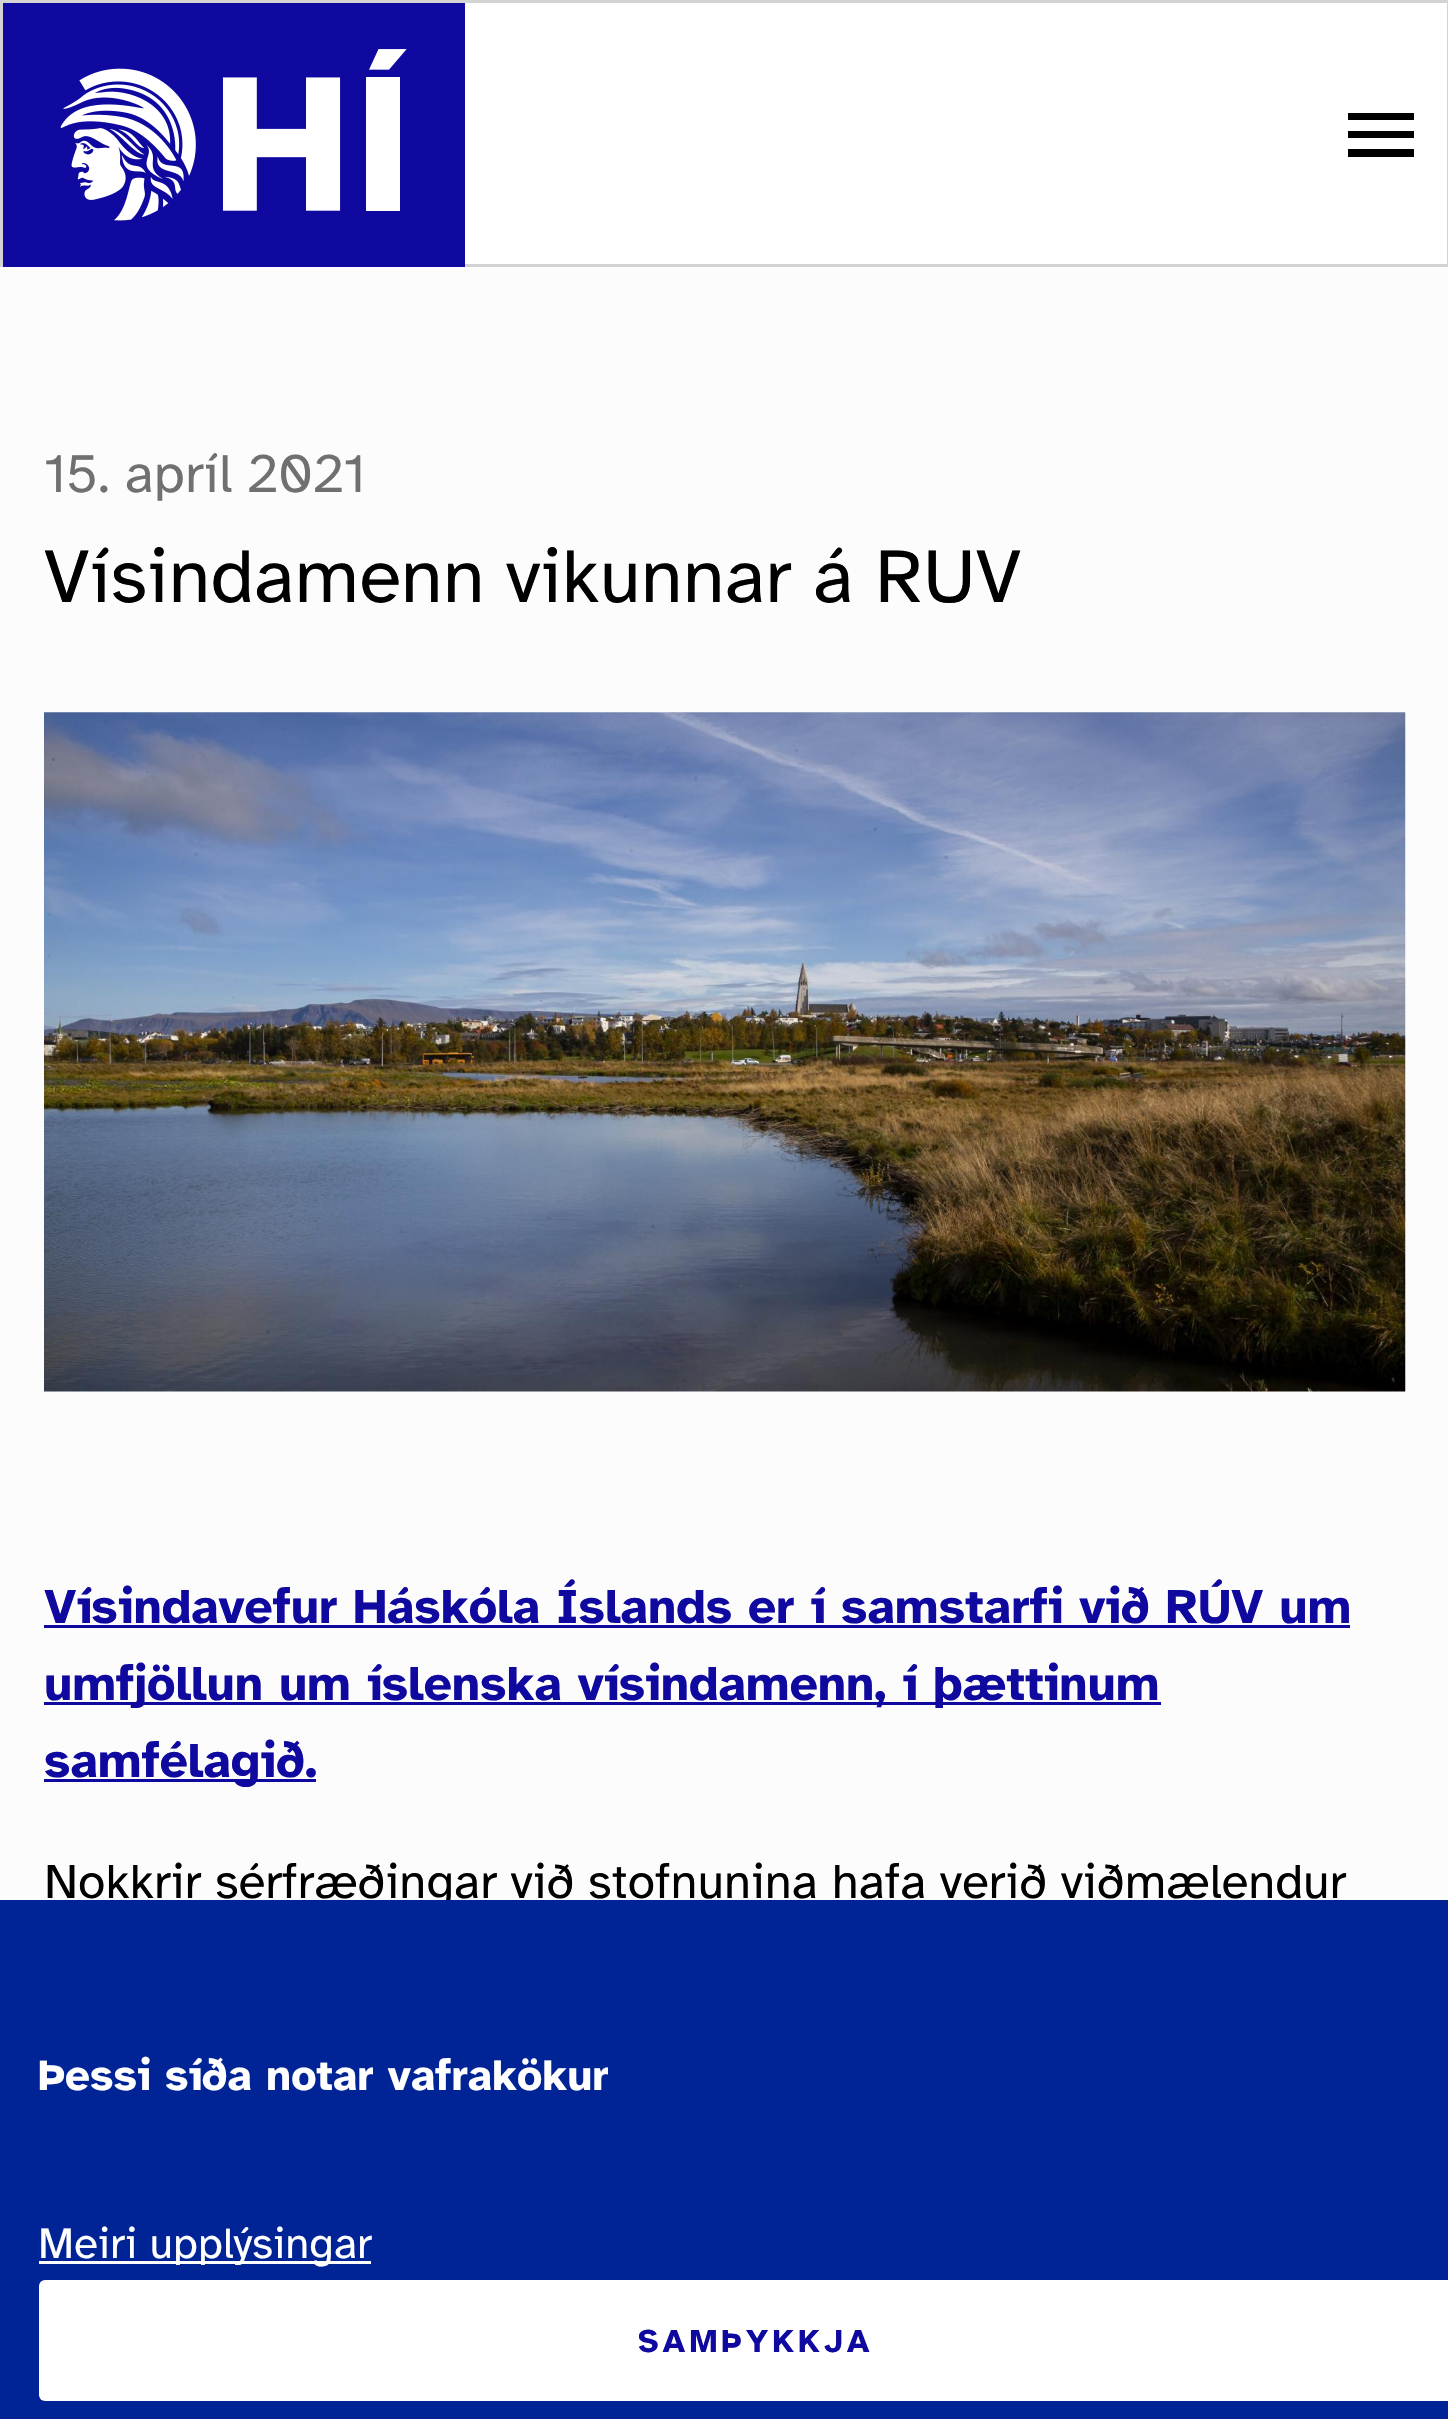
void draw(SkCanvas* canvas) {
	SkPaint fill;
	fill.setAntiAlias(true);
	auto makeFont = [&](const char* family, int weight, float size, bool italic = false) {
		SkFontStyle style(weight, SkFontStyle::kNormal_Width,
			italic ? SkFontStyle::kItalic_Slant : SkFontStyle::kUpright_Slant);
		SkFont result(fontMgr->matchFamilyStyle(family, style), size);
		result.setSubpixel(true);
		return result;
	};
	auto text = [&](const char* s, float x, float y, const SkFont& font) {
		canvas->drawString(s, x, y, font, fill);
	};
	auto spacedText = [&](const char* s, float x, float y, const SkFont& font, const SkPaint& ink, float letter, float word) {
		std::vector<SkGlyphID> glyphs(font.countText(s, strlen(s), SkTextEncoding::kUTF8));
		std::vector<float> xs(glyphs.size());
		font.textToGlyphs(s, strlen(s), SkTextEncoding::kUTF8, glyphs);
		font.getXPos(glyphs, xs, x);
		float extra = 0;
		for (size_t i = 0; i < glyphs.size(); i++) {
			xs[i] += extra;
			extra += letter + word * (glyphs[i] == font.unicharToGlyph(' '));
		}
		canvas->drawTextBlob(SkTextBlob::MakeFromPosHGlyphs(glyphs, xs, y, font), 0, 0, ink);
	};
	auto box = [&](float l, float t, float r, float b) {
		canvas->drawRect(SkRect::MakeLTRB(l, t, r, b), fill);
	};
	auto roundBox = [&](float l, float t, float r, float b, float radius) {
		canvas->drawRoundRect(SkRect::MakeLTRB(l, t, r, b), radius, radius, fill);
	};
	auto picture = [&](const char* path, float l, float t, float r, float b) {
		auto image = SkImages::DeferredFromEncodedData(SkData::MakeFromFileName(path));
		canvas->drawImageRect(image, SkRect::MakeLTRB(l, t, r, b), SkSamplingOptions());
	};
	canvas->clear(0xFFFCFCFC);
	fill.setColor(0xFFD3D3D3);
	box(0, 0, 1448, 3);
	fill.setColor(0xFFFFFFFF);
	box(465, 3, 1447, 264);
	fill.setColor(0xFFD3D3D3);
	box(0, 3, 3, 267);
	fill.setColor(0xFF10099F);
	box(3, 3, 465, 267);
	picture("image0.png", 60, 49, 407, 221);
	fill.setColor(0xFF000000);
	canvas->drawPath(SkPathBuilder(SkPathFillType::kEvenOdd).moveTo(1348, 157).lineTo(1348, 149).lineTo(1414, 149).lineTo(1414, 157).close().moveTo(1348, 138).lineTo(1348, 131).lineTo(1414, 131).lineTo(1414, 138).close().moveTo(1348, 120).lineTo(1348, 113).lineTo(1414, 113).lineTo(1414, 120).close().detach(), fill);
	fill.setColor(0xFFD3D3D3);
	box(1447, 3, 1448, 267);
	box(465, 264, 1447, 267);
	picture("image1.png", 44, 712, 1406, 1392);
	fill.setColor(0xFF10099F);
	box(44, 1625, 1350, 1628);
	box(44, 1702, 1161, 1705);
	box(44, 1779, 316, 1782);
	auto font1 = makeFont("Atkinson Hyperlegible", 400, 55);
	fill.setColor(0xFF707070);
	text("15. apríl 2021", 44, 492, font1);
	auto font2 = makeFont("Atkinson Hyperlegible", 400, 77);
	fill.setColor(0xFF000000);
	text("Vísindamenn vikunnar á RUV", 44, 602, font2);
	auto font3 = makeFont("Atkinson Hyperlegible", 700, 49.5f);
	fill.setColor(0xFF10099F);
	text("Vísindavefur Háskóla Íslands er í samstarfi við RÚV um", 44, 1623, font3);
	text("umfjöllun um íslenska vísindamenn, í þættinum", 44, 1700, font3);
	text("samfélagið.", 44, 1777, font3);
	auto font4 = makeFont("Atkinson Hyperlegible", 400, 49.5f);
	fill.setColor(0xFF000000);
	text("Nokkrir sérfræðingar við stofnunina hafa verið viðmælendur", 44, 1898, font4);
	fill.setColor(0xFF002496);
	box(0, 1900, 1448, 2419);
	auto font5 = makeFont("Atkinson Hyperlegible", 700, 44);
	fill.setColor(0xFFFFFFFF);
	text("Þessi síða notar vafrakökur", 38, 2090, font5);
	box(39, 2261, 371, 2264);
	auto font6 = makeFont("Atkinson Hyperlegible", 400, 44);
	text("Meiri upplýsingar", 38, 2258, font6);
	roundBox(39, 2280, 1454, 2401, 6);
	auto font7 = makeFont("Atkinson Hyperlegible", 700, 33);
	fill.setColor(0xFF10099F);
	spacedText("SAMÞYKKJA", 638, 2352, font7, fill, 4.1f, 0);
}
